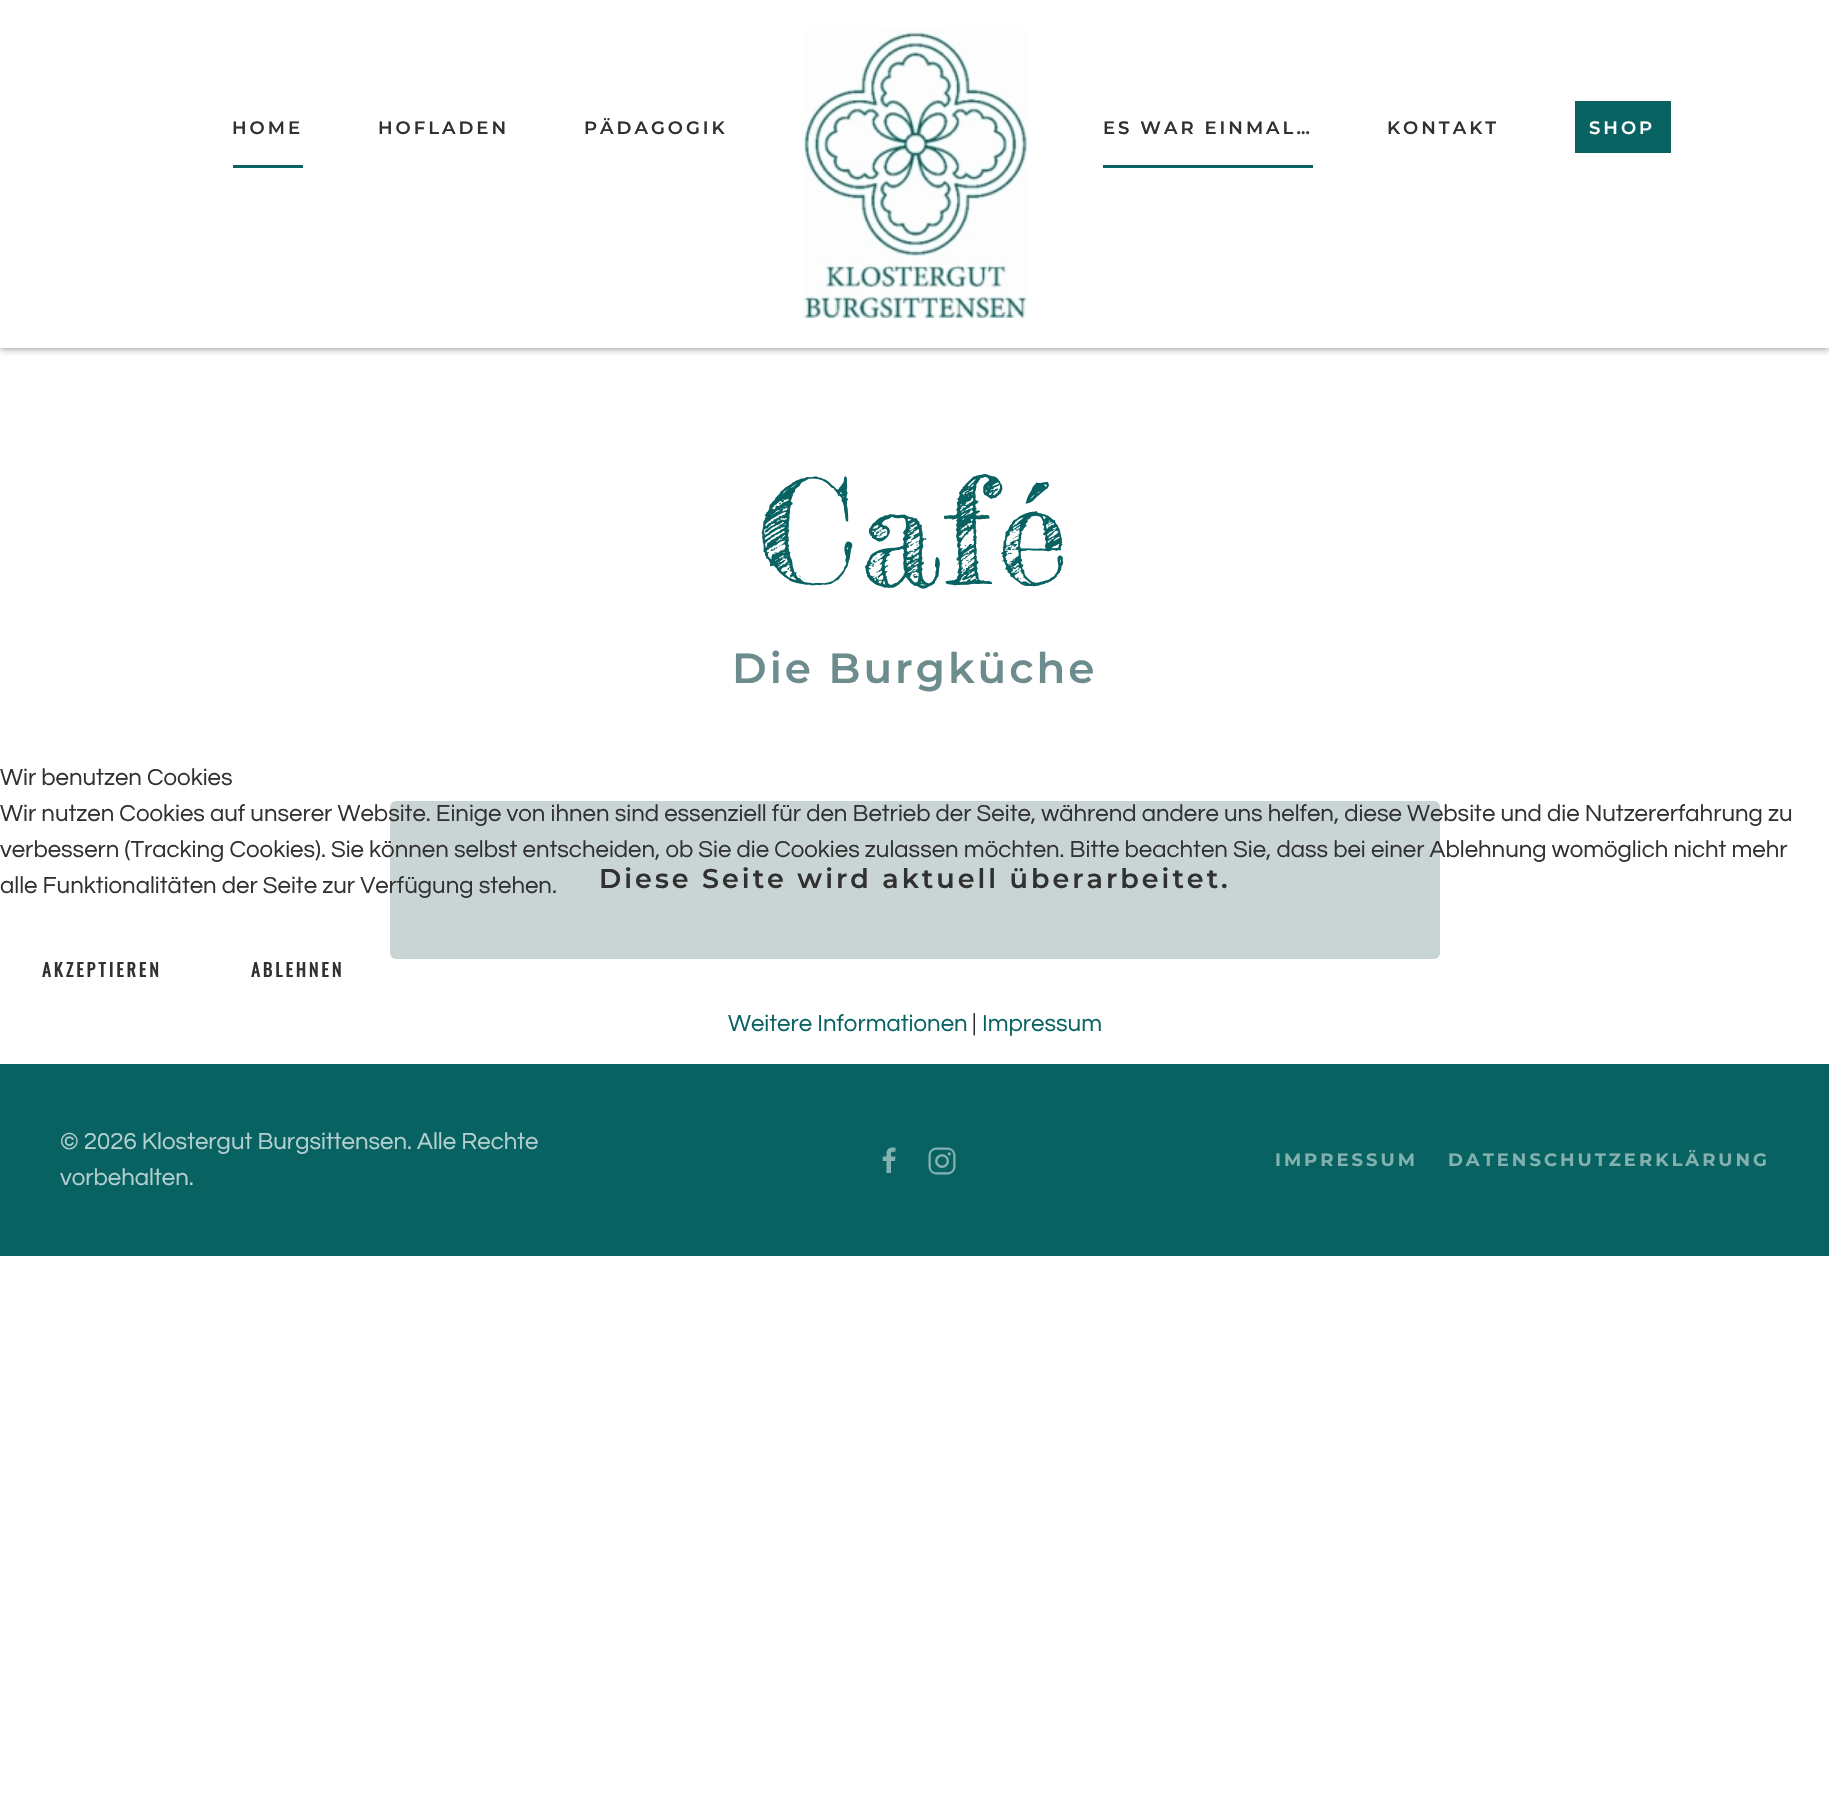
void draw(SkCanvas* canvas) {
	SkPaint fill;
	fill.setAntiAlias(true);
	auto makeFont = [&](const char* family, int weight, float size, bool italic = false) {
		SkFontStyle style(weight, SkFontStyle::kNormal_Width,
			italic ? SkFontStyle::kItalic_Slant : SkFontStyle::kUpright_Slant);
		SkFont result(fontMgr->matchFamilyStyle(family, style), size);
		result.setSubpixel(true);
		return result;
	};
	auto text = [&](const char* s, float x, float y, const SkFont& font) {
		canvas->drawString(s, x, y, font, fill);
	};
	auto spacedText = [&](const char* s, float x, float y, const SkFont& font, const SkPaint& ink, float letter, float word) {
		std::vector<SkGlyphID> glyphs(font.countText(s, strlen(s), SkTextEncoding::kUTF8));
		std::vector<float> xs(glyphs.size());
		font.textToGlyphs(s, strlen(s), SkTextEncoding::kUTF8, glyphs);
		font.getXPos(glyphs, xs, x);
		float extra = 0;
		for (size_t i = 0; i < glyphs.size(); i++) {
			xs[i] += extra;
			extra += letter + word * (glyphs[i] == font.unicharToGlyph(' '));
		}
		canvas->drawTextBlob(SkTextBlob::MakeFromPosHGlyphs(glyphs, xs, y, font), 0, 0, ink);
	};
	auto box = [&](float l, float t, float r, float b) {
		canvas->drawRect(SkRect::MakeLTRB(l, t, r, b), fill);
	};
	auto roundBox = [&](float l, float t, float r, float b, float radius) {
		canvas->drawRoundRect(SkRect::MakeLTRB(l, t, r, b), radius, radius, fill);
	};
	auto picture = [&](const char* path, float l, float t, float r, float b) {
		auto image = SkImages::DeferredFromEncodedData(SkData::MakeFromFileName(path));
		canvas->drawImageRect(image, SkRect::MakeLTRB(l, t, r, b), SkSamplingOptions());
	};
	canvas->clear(0xFFFFFFFF);
	canvas->save();
	canvas->clipRect(SkRect::MakeLTRB(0, 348, 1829, 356));
	fill.setColor(0xFF808080);
	fill.setMaskFilter(SkMaskFilter::MakeBlur(kNormal_SkBlurStyle, 4));
	canvas->drawRect(SkRect::MakeLTRB(0, 0, 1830, 348), fill);
	fill.setMaskFilter(nullptr);
	canvas->restore();
	fill.setColor(0xFF076261);
	box(233, 165, 303, 168);
	picture("image0.png", 802, 30, 1028, 318);
	box(1103, 165, 1313, 168);
	box(1575, 101, 1671, 153);
	fill.setColor(0xFFC9D5D5);
	roundBox(390, 801, 1440, 959, 6);
	fill.setColor(0xFF076261);
	box(0, 1064, 1829, 1256);
	picture("image1.png", 882, 1147, 896, 1173);
	picture("image2.png", 928, 1147, 956, 1175);
	auto font1 = makeFont("Montserrat", 100, 18);
	fill.setColor(0xFF313131);
	spacedText("HOME", 232, 134, font1, fill, 3, 0);
	spacedText("HOFLADEN", 378, 134, font1, fill, 3, 0);
	spacedText("PÄDAGOGIK", 584, 134, font1, fill, 3, 0);
	spacedText("ES WAR EINMAL…", 1103, 134, font1, fill, 3, 0);
	spacedText("KONTAKT", 1387, 134, font1, fill, 3, 0);
	fill.setColor(0xFFFFFFFF);
	spacedText("SHOP", 1589, 134, font1, fill, 3, 0);
	auto font2 = makeFont("Fredericka the Great", 400, 144);
	fill.setColor(0xFF076261);
	spacedText("Café", 758, 584, font2, fill, 3, 0);
	auto font3 = makeFont("Montserrat", 100, 42);
	fill.setColor(0xFF6D8C8E);
	spacedText("Die Burgküche", 732, 683, font3, fill, 3, 0);
	auto font4 = makeFont("Montserrat", 100, 27);
	fill.setColor(0xFF313131);
	spacedText("Diese Seite wird aktuell überarbeitet.", 599, 888, font4, fill, 3, 0);
	auto font5 = makeFont("Questrial", 400, 24);
	fill.setColor(0xFFB5D0D0);
	text("© 2026 Klostergut Burgsittensen. Alle Rechte", 60, 1149, font5);
	text("vorbehalten.", 60, 1185, font5);
	auto font6 = makeFont("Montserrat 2", 100, 18);
	fill.setColor(0xFF83B1B0);
	spacedText("IMPRESSUM", 1275, 1166, font6, fill, 3, 0);
	spacedText("DATENSCHUTZERKLÄRUNG", 1448, 1166, font6, fill, 3, 0);
	fill.setColor(0xFF313131);
	text("Wir benutzen Cookies", 0, 785, font5);
	text("Wir nutzen Cookies auf unserer Website. Einige von ihnen sind essenziell für den Betrieb der Seite, während andere uns helfen, diese Website und die Nutzererfahrung zu", 0, 821, font5);
	text("verbessern (Tracking Cookies). Sie können selbst entscheiden, ob Sie die Cookies zulassen möchten. Bitte beachten Sie, dass bei einer Ablehnung womöglich nicht mehr", 0, 857, font5);
	text("alle Funktionalitäten der Seite zur Verfügung stehen.", 0, 893, font5);
	auto font7 = makeFont("Oswald", 700, 18);
	spacedText("AKZEPTIEREN", 42, 977, font7, fill, 3, 0);
	spacedText("ABLEHNEN", 251, 977, font7, fill, 3, 0);
	fill.setColor(0xFF076261);
	text("Weitere Informationen", 728, 1031, font5);
	fill.setColor(0xFF313131);
	text("|", 972, 1031, font5);
	fill.setColor(0xFF076261);
	text("Impressum", 982, 1031, font5);
}
